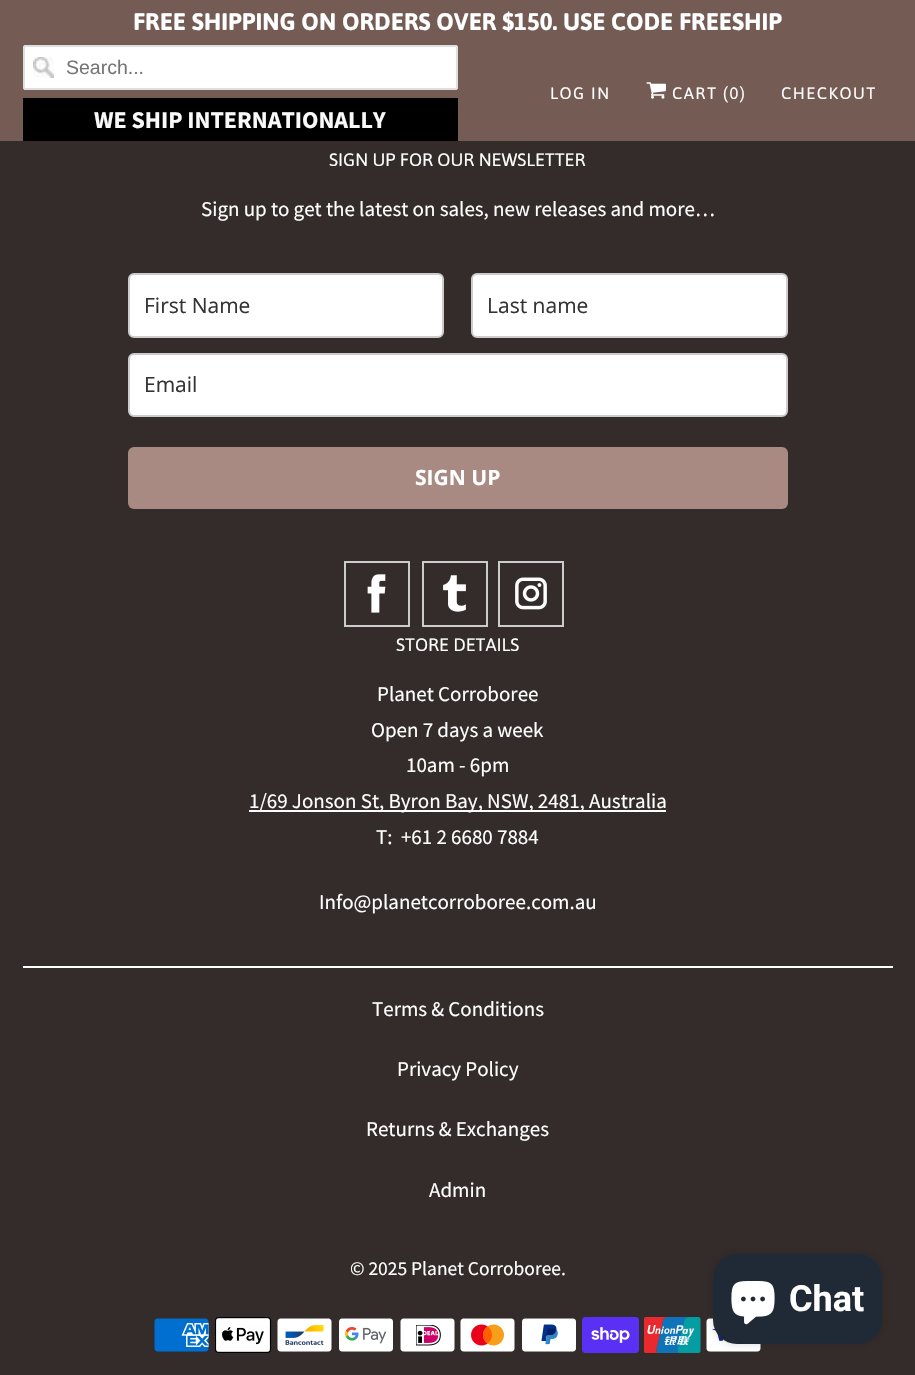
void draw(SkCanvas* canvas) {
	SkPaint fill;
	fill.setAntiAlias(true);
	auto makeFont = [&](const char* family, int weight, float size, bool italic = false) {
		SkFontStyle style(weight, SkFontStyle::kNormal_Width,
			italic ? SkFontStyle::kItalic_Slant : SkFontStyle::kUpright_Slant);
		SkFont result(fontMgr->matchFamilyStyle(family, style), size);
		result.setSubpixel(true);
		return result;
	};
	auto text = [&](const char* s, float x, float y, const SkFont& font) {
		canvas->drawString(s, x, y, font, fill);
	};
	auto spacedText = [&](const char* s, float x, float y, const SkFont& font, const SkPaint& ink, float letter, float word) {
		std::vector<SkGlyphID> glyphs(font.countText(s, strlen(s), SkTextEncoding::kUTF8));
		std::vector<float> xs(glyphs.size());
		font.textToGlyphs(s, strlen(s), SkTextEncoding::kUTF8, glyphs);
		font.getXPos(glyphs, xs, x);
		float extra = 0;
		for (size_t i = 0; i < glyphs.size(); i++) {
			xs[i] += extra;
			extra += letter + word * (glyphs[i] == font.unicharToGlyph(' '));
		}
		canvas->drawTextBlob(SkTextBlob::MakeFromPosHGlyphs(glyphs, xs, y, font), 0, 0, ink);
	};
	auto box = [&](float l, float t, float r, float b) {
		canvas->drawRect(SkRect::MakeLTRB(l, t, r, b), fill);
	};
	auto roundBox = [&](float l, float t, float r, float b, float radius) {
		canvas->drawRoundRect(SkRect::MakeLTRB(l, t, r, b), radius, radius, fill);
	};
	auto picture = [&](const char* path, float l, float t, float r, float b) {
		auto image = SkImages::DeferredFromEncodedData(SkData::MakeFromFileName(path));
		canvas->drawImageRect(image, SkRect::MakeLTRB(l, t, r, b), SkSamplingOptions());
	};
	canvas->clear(0xFF332C2A);
	fill.setColor(0xFF745C55);
	box(0, 0, 915, 141);
	picture("image0.png", 646, 82, 666, 99);
	fill.setColor(0xFF000000);
	box(23, 98, 458, 141);
	fill.setColor(0xFFFFFFFF);
	roundBox(23, 45, 458, 90, 3);
	picture("image1.png", 33, 57, 54, 78);
	fill.setStyle(SkPaint::kStroke_Style);
	fill.setStrokeWidth(2);
	fill.setColor(0xFFDFDFDF);
	canvas->drawRoundRect(SkRect::MakeLTRB(24, 46, 457, 89), 2, 2, fill);
	fill.setStyle(SkPaint::kFill_Style);
	fill.setColor(0xFFFFFFFF);
	canvas->drawRoundRect(SkRect::MakeLTRB(129, 274, 443, 337), 5, 5, fill);
	fill.setStyle(SkPaint::kStroke_Style);
	fill.setColor(0xFFCCCCCC);
	canvas->drawRoundRect(SkRect::MakeLTRB(129, 274, 443, 337), 5, 5, fill);
	fill.setStyle(SkPaint::kFill_Style);
	fill.setColor(0xFFFFFFFF);
	canvas->drawRoundRect(SkRect::MakeLTRB(472, 274, 787, 337), 5, 5, fill);
	fill.setStyle(SkPaint::kStroke_Style);
	fill.setColor(0xFFCCCCCC);
	canvas->drawRoundRect(SkRect::MakeLTRB(472, 274, 787, 337), 5, 5, fill);
	fill.setStyle(SkPaint::kFill_Style);
	fill.setColor(0xFFFFFFFF);
	canvas->drawRoundRect(SkRect::MakeLTRB(129, 354, 787, 416), 5, 5, fill);
	fill.setStyle(SkPaint::kStroke_Style);
	fill.setColor(0xFFCCCCCC);
	canvas->drawRoundRect(SkRect::MakeLTRB(129, 354, 787, 416), 5, 5, fill);
	fill.setStyle(SkPaint::kFill_Style);
	fill.setColor(0xFFA88A82);
	roundBox(128, 447, 788, 509, 6);
	fill.setStyle(SkPaint::kStroke_Style);
	fill.setColor(0xFFCCCCCC);
	canvas->drawRect(SkRect::MakeLTRB(345, 562, 409, 626), fill);
	picture("image2.png", 367, 574, 386, 613);
	canvas->drawRect(SkRect::MakeLTRB(423, 562, 487, 626), fill);
	picture("image3.png", 443, 575, 466, 612);
	canvas->drawRect(SkRect::MakeLTRB(499, 562, 563, 626), fill);
	picture("image4.png", 515, 577, 547, 610);
	fill.setStyle(SkPaint::kFill_Style);
	fill.setColor(0xFFFFFFFF);
	box(249, 810, 666, 812);
	box(23, 966, 893, 968);
	picture("image5.png", 154, 1318, 209, 1352);
	picture("image6.png", 215, 1317, 272, 1353);
	picture("image7.png", 277, 1318, 332, 1352);
	picture("image8.png", 339, 1318, 393, 1352);
	picture("image9.png", 400, 1318, 455, 1352);
	picture("image10.png", 460, 1318, 515, 1352);
	picture("image11.png", 522, 1318, 576, 1352);
	picture("image12.png", 582, 1317, 639, 1353);
	picture("image13.png", 644, 1317, 701, 1353);
	picture("image14.png", 706, 1318, 761, 1352);
	fill.setColor(0x26000000);
	fill.setMaskFilter(SkMaskFilter::MakeBlur(kNormal_SkBlurStyle, 4));
	canvas->drawRoundRect(SkRect::MakeLTRB(713, 1254, 882, 1344), 24, 24, fill);
	fill.setMaskFilter(nullptr);
	fill.setColor(0xFF202A36);
	roundBox(713, 1254, 882, 1344, 24);
	picture("image15.png", 731, 1281, 775, 1325);
	auto font1 = makeFont("Asap", 700, 24);
	fill.setColor(0xFFFFFFFF);
	text("FREE SHIPPING ON ORDERS OVER $150. USE CODE FREESHIP", 133, 30, font1);
	auto font2 = makeFont("Asap", 400, 16.5f);
	spacedText("LOG IN", 550, 99, font2, fill, 1.5f, 0);
	spacedText("CART (0)", 672, 99, font2, fill, 1.5f, 0);
	spacedText("CHECKOUT", 781, 99, font2, fill, 1.5f, 0);
	auto font3 = makeFont("Source Sans Pro", 700, 24);
	fill.setColor(0xFFF9F9F9);
	text("WE SHIP INTERNATIONALLY", 94, 128, font3);
	auto font4 = makeFont("Liberation Sans", 400, 19.5f);
	fill.setColor(0xFF757575);
	text("Search...", 66, 74, font4);
	auto font5 = makeFont("Asap", 400, 18);
	fill.setColor(0xFFFFFFFF);
	text("SIGN UP FOR OUR NEWSLETTER", 329, 166, font5);
	auto font6 = makeFont("Source Sans Pro", 400, 21);
	text("Sign up to get the latest on sales, new releases and more…", 201, 216, font6);
	auto font7 = makeFont("Open Sans", 400, 21);
	fill.setColor(0xFF333333);
	text("First Name", 144, 313, font7);
	text("Last name", 487, 313, font7);
	text("Email", 144, 392, font7);
	auto font8 = makeFont("Open Sans", 700, 21);
	fill.setColor(0xFFFFFFFF);
	text("SIGN UP", 415, 485, font8);
	text("STORE DETAILS", 396, 651, font5);
	text("Planet Corroboree", 377, 701, font6);
	text("Open 7 days a week", 371, 737, font6);
	text("10am - 6pm", 406, 772, font6);
	text("1/69 Jonson St, Byron Bay, NSW, 2481, Australia", 249, 808, font6);
	text("T:  +61 2 6680 7884", 376, 844, font6);
	text("Info@planetcorroboree.com.au", 319, 909, font6);
	text("Terms & Conditions", 372, 1016, font6);
	text("Privacy Policy", 397, 1076, font6);
	text("Returns & Exchanges", 366, 1136, font6);
	text("Admin", 429, 1197, font6);
	auto font9 = makeFont("Source Sans Pro", 400, 19.5f);
	text("© 2025 Planet Corroboree.", 350, 1275, font9);
	auto font10 = makeFont("Roboto", 700, 36);
	text("Chat", 789, 1311, font10);
}
